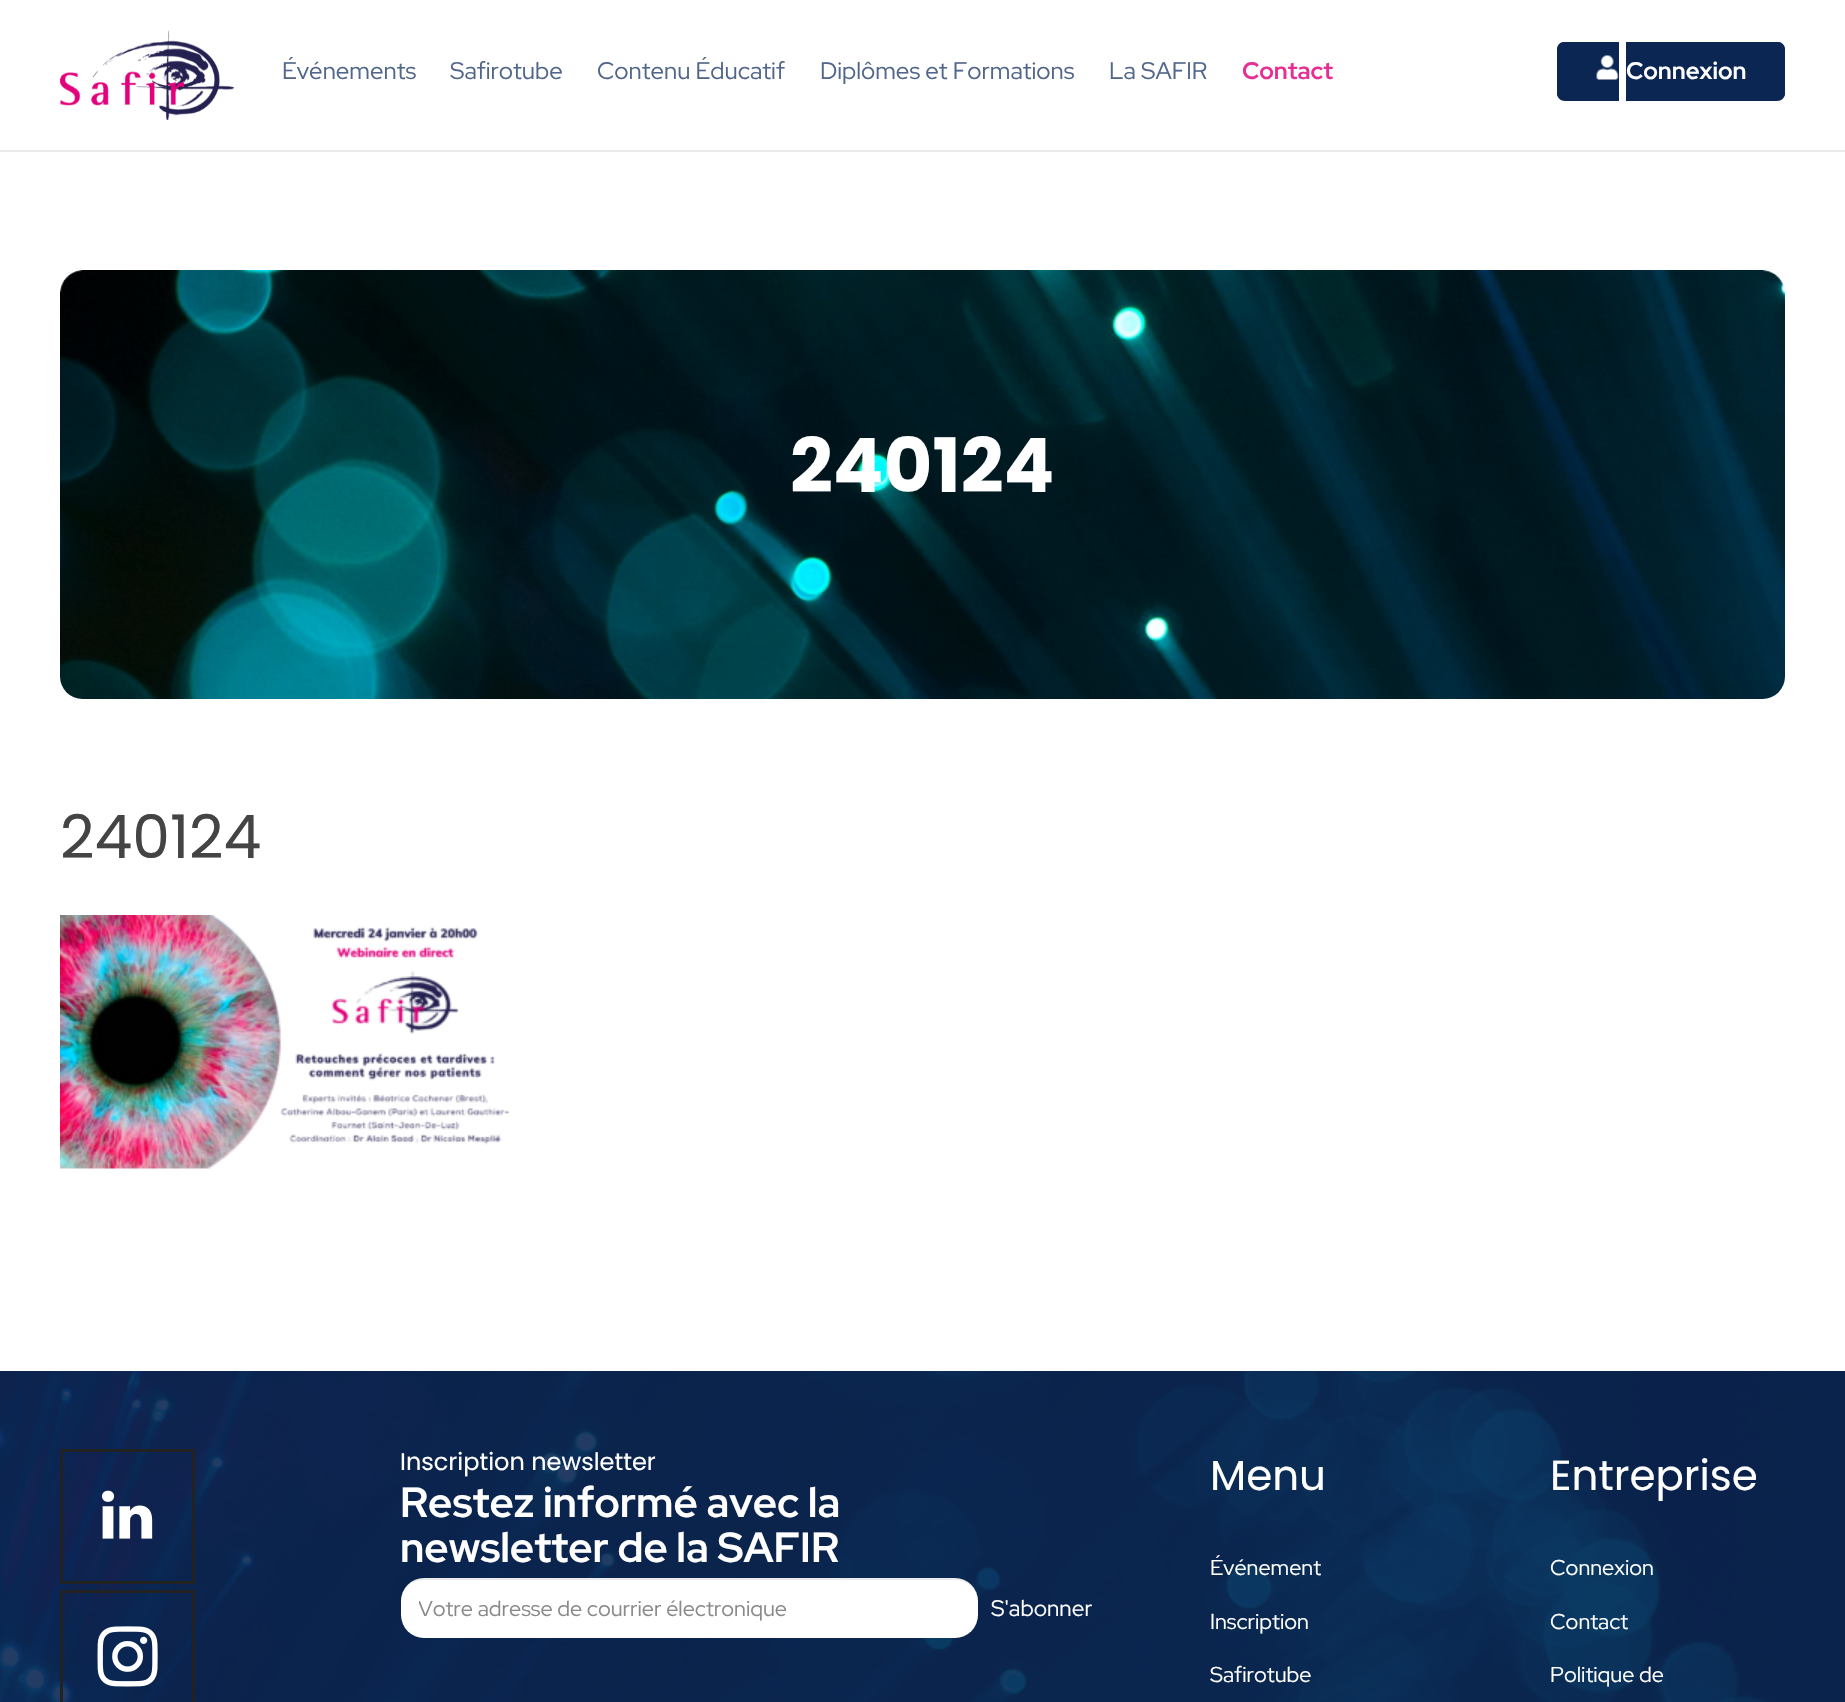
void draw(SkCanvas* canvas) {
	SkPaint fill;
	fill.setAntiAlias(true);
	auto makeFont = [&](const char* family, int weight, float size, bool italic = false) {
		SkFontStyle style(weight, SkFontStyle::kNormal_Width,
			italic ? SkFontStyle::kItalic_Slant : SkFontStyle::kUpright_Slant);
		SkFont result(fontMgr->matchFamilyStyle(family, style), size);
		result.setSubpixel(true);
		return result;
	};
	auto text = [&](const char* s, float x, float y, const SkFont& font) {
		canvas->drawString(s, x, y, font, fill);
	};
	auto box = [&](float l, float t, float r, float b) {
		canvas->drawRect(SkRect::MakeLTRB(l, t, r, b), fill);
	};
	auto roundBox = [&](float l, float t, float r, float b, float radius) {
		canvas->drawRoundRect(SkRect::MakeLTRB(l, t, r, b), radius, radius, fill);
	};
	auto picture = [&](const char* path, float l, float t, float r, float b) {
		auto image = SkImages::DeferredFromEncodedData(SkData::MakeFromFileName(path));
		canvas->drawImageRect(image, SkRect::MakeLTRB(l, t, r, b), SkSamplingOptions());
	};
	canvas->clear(0xFFFFFFFF);
	fill.setColor(0xFFEBEBEB);
	box(0, 150, 1845, 152);
	picture("image0.png", 60, 30, 234, 120);
	fill.setColor(0xFF0B2653);
	canvas->drawPath(SkPathBuilder().moveTo(1565, 42).lineTo(1619, 42).lineTo(1619, 101).lineTo(1565, 101).cubicTo(1560.5f, 101, 1557, 97.5f, 1557, 93).lineTo(1557, 50).cubicTo(1557, 45.5f, 1560.5f, 42, 1565, 42).close().detach(), fill);
	canvas->drawPath(SkPathBuilder(SkPathFillType::kEvenOdd).moveTo(1564, 42).lineTo(1618, 42).lineTo(1618, 100).lineTo(1564, 100).cubicTo(1560, 100, 1557, 97, 1557, 93).lineTo(1557, 50).cubicTo(1557, 45, 1560, 42, 1564, 42).close().moveTo(1564, 44).lineTo(1618, 44).lineTo(1618, 99).lineTo(1564, 99).cubicTo(1561, 99, 1558, 96, 1558, 93).lineTo(1558, 50).cubicTo(1558, 46, 1561, 44, 1564, 44).close().detach(), fill);
	picture("image1.png", 1596, 55, 1619, 80);
	canvas->drawPath(SkPathBuilder().moveTo(1626, 42).lineTo(1777, 42).cubicTo(1781.5f, 42, 1785, 45.5f, 1785, 50).lineTo(1785, 93).cubicTo(1785, 97.5f, 1781.5f, 101, 1777, 101).lineTo(1626, 101).close().detach(), fill);
	canvas->drawPath(SkPathBuilder(SkPathFillType::kEvenOdd).moveTo(1626, 42).lineTo(1778, 42).cubicTo(1782, 42, 1785, 45, 1785, 50).lineTo(1785, 93).cubicTo(1785, 97, 1782, 100, 1778, 100).lineTo(1626, 100).close().moveTo(1626, 44).lineTo(1778, 44).cubicTo(1781, 44, 1784, 46, 1784, 50).lineTo(1784, 93).cubicTo(1784, 96, 1781, 99, 1778, 99).lineTo(1626, 99).close().detach(), fill);
	picture("image2.png", 60, 270, 1785, 699);
	picture("image3.png", 60, 915, 510, 1169);
	picture("image4.png", 0, 1371, 1845, 1702);
	fill.setStyle(SkPaint::kStroke_Style);
	fill.setStrokeWidth(3);
	fill.setColor(0xFF222222);
	canvas->drawRect(SkRect::MakeLTRB(61.5f, 1450.5f, 193.5f, 1582.5f), fill);
	picture("image5.png", 102, 1490, 153, 1539);
	canvas->drawRect(SkRect::MakeLTRB(61.5f, 1591.5f, 193.5f, 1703.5f), fill);
	picture("image6.png", 97, 1626, 158, 1687);
	fill.setStyle(SkPaint::kFill_Style);
	fill.setColor(0xFFFFFFFF);
	roundBox(401, 1578, 978, 1638, 23);
	fill.setColor(0x14000000);
	canvas->drawPath(SkPathBuilder().moveTo(423, 1580).lineTo(956, 1580).cubicTo(968, 1580, 978, 1590, 978, 1602).lineTo(978, 1601).cubicTo(978, 1588, 968, 1578, 955, 1578).lineTo(424, 1578).cubicTo(415, 1578, 407, 1583, 403, 1591).cubicTo(407, 1584, 415, 1580, 423, 1580).close().detach(), fill);
	auto font1 = makeFont("Red Hat Display", 400, 24);
	fill.setColor(0xFF51668A);
	text("Événements", 282, 79, font1);
	text("Safirotube", 450, 79, font1);
	text("Contenu Éducatif", 597, 79, font1);
	text("Diplômes et Formations", 820, 79, font1);
	text("La SAFIR", 1109, 79, font1);
	auto font2 = makeFont("Red Hat Display", 700, 24);
	fill.setColor(0xFFE72F93);
	text("Contact", 1242, 79, font2);
	fill.setColor(0xFFFFFFFF);
	text("Connexion", 1626, 79, font2);
	auto font3 = makeFont("Poppins", 700, 75);
	text("240124", 790, 492, font3);
	auto font4 = makeFont("Poppins", 400, 60);
	fill.setColor(0xFF444444);
	text("240124", 60, 858, font4);
	auto font5 = makeFont("Poppins", 400, 24);
	fill.setColor(0xFFFFFFFF);
	text("Inscription newsletter", 400, 1470, font5);
	auto font6 = makeFont("Red Hat Display", 700, 42);
	text("Restez informé avec la", 400, 1517, font6);
	text("newsletter de la SAFIR", 400, 1562, font6);
	canvas->save();
	canvas->clipRect(SkRect::MakeLTRB(419, 1593, 960, 1622));
	auto font7 = makeFont("Red Hat Display", 400, 21.6f);
	fill.setColor(0xFF898989);
	text("Votre adresse de courrier électronique", 418, 1616, font7);
	canvas->restore();
	auto font8 = makeFont("Red Hat Display", 400, 22.5f);
	fill.setColor(0xFFFFFFFF);
	text("S'abonner", 991, 1616, font8);
	auto font9 = makeFont("Poppins", 400, 42);
	text("Menu", 1210, 1490, font9);
	text("Événement", 1210, 1575, font7);
	text("Inscription", 1210, 1629, font7);
	text("Safirotube", 1210, 1682, font7);
	text("Entreprise", 1550, 1490, font9);
	text("Connexion", 1550, 1575, font7);
	text("Contact", 1550, 1629, font7);
	text("Politique de", 1550, 1682, font7);
}
